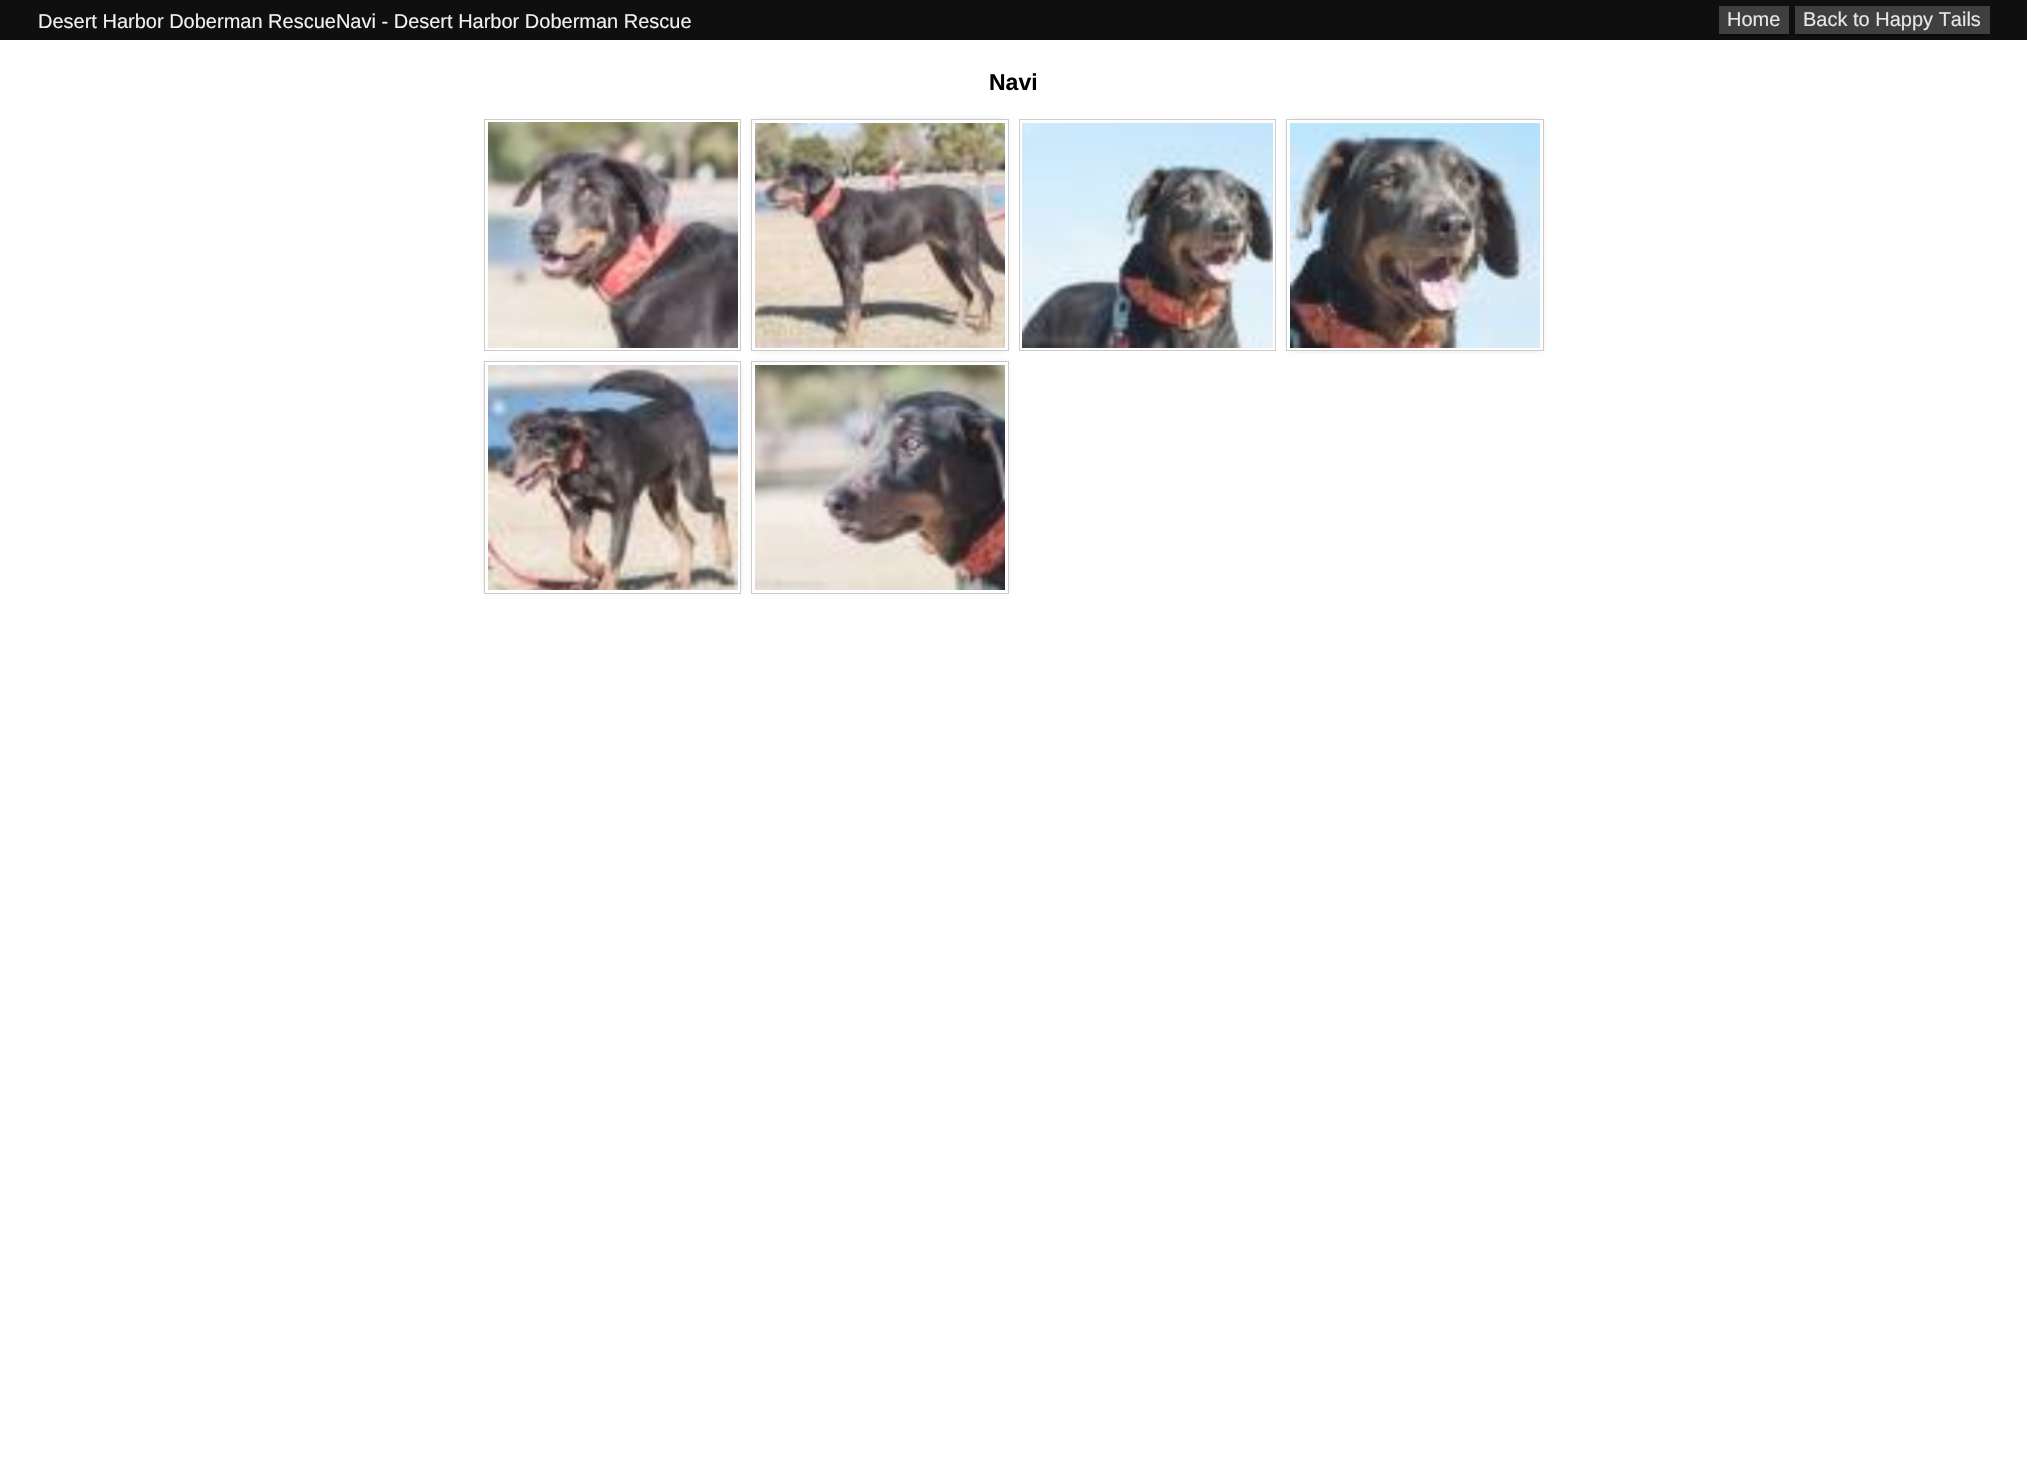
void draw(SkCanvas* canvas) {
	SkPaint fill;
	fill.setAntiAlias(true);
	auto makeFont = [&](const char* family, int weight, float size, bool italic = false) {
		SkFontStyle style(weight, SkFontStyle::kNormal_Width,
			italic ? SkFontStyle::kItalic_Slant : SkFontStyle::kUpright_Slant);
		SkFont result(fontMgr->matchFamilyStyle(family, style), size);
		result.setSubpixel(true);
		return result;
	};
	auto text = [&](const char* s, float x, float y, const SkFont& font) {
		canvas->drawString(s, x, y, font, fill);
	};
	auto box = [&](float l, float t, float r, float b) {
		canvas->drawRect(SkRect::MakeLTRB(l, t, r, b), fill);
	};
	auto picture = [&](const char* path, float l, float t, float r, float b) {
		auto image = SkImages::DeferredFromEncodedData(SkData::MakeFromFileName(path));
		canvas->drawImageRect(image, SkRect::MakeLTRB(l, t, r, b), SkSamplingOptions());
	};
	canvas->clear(0xFFFFFFFF);
	fill.setColor(0xFF0F0F0F);
	box(0, 0, 2027, 40);
	fill.setColor(0xFF0C0C0C);
	canvas->drawPath(SkPathBuilder().moveTo(1719, 34).lineTo(1719, 36).lineTo(1789, 36).lineTo(1789, 9).lineTo(1789, 34).close().detach(), fill);
	fill.setColor(0xFF3F3F3F);
	box(1719, 6, 1789, 34);
	fill.setColor(0xFF0C0C0C);
	box(1795, 34, 1990, 36);
	fill.setColor(0xFF3F3F3F);
	box(1795, 6, 1990, 34);
	fill.setStyle(SkPaint::kStroke_Style);
	fill.setStrokeWidth(1);
	fill.setColor(0xFFCCCCCC);
	canvas->drawRect(SkRect::MakeLTRB(484.5f, 119.5f, 740.5f, 350.5f), fill);
	picture("image0.png", 488, 122, 738, 348);
	fill.setStyle(SkPaint::kFill_Style);
	fill.setMaskFilter(SkMaskFilter::MakeBlur(kNormal_SkBlurStyle, 3));
	canvas->drawRect(SkRect::MakeLTRB(754, 121, 1006, 349), fill);
	fill.setMaskFilter(nullptr);
	fill.setColor(0xFFFFFFFF);
	canvas->drawRect(SkRect::MakeLTRB(751.5f, 119.5f, 1008.5f, 350.5f), fill);
	fill.setStyle(SkPaint::kStroke_Style);
	fill.setColor(0xFFCCCCCC);
	canvas->drawRect(SkRect::MakeLTRB(751.5f, 119.5f, 1008.5f, 350.5f), fill);
	picture("image1.png", 755, 123, 1005, 348);
	canvas->drawRect(SkRect::MakeLTRB(1019.5f, 119.5f, 1275.5f, 350.5f), fill);
	picture("image2.png", 1022, 123, 1273, 348);
	fill.setStyle(SkPaint::kFill_Style);
	fill.setMaskFilter(SkMaskFilter::MakeBlur(kNormal_SkBlurStyle, 3));
	canvas->drawRect(SkRect::MakeLTRB(1289, 121, 1541, 349), fill);
	fill.setMaskFilter(nullptr);
	fill.setColor(0xFFFFFFFF);
	canvas->drawRect(SkRect::MakeLTRB(1286.5f, 119.5f, 1543.5f, 350.5f), fill);
	fill.setStyle(SkPaint::kStroke_Style);
	fill.setColor(0xFFCCCCCC);
	canvas->drawRect(SkRect::MakeLTRB(1286.5f, 119.5f, 1543.5f, 350.5f), fill);
	picture("image3.png", 1290, 123, 1540, 348);
	fill.setStyle(SkPaint::kFill_Style);
	fill.setMaskFilter(SkMaskFilter::MakeBlur(kNormal_SkBlurStyle, 3));
	canvas->drawRect(SkRect::MakeLTRB(486, 364, 739, 591), fill);
	fill.setMaskFilter(nullptr);
	fill.setColor(0xFFFFFFFF);
	canvas->drawRect(SkRect::MakeLTRB(484.5f, 361.5f, 740.5f, 593.5f), fill);
	fill.setStyle(SkPaint::kStroke_Style);
	fill.setColor(0xFFCCCCCC);
	canvas->drawRect(SkRect::MakeLTRB(484.5f, 361.5f, 740.5f, 593.5f), fill);
	picture("image4.png", 488, 365, 738, 590);
	fill.setStyle(SkPaint::kFill_Style);
	fill.setMaskFilter(SkMaskFilter::MakeBlur(kNormal_SkBlurStyle, 3));
	canvas->drawRect(SkRect::MakeLTRB(754, 364, 1006, 591), fill);
	fill.setMaskFilter(nullptr);
	fill.setColor(0xFFFFFFFF);
	canvas->drawRect(SkRect::MakeLTRB(751.5f, 361.5f, 1008.5f, 593.5f), fill);
	fill.setStyle(SkPaint::kStroke_Style);
	fill.setColor(0xFFCCCCCC);
	canvas->drawRect(SkRect::MakeLTRB(751.5f, 361.5f, 1008.5f, 593.5f), fill);
	picture("image5.png", 755, 365, 1005, 590);
	auto font1 = makeFont("Liberation Sans", 400, 20);
	fill.setStyle(SkPaint::kFill_Style);
	fill.setColor(0xFFF1F1F1);
	text("Desert Harbor Doberman RescueNavi - Desert Harbor Doberman Rescue", 38, 28, font1);
	fill.setColor(0xFFE7E7E7);
	text("Home", 1727, 26, font1);
	text("Back to Happy Tails", 1803, 26, font1);
	auto font2 = makeFont("Liberation Sans", 700, 23);
	fill.setColor(0xFF000000);
	text("Navi", 989, 90, font2);
}
